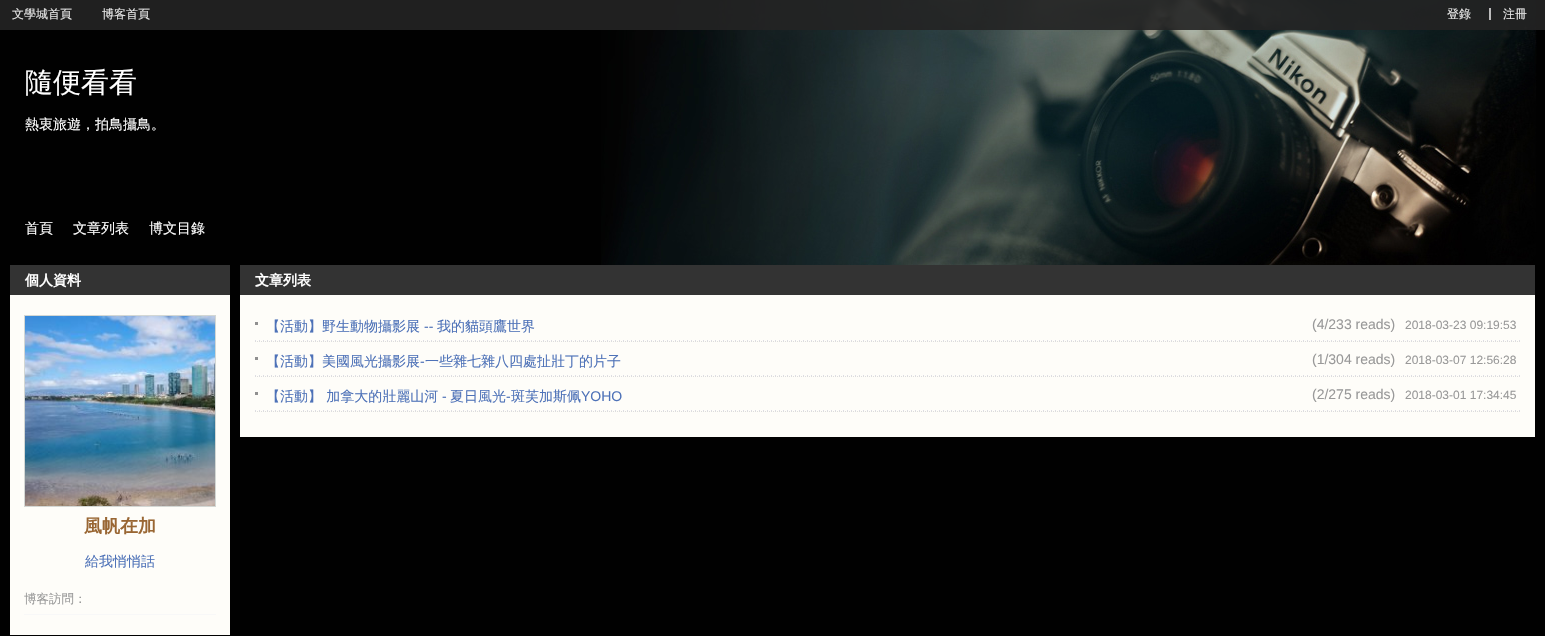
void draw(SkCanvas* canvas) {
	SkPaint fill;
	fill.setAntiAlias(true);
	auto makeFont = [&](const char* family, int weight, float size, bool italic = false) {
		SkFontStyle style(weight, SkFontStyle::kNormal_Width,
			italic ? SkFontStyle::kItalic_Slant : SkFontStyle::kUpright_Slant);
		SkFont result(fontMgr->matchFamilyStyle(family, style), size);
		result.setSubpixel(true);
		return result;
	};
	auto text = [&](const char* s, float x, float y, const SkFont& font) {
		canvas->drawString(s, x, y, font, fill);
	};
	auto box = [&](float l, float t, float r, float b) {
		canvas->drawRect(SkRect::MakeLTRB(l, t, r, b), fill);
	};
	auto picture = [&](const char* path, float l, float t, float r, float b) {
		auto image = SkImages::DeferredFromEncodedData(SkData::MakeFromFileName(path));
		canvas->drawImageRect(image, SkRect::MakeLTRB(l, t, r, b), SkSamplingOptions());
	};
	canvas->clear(0xFF010101);
	picture("image0.png", 601, 0, 1537, 265);
	fill.setColor(0xE6222222);
	box(0, 0, 1545, 30);
	fill.setColor(0xFFBBBBBB);
	box(1489, 8, 1491, 20);
	fill.setColor(0xFF333333);
	box(10, 265, 230, 295);
	fill.setColor(0xFFFEFDF9);
	box(10, 295, 230, 635);
	fill.setStyle(SkPaint::kStroke_Style);
	fill.setStrokeWidth(1);
	fill.setColor(0xFFD3D7D4);
	canvas->drawRect(SkRect::MakeLTRB(24.5f, 315.5f, 215.5f, 506.5f), fill);
	picture("image1.png", 25, 316, 215, 506);
	fill.setStyle(SkPaint::kFill_Style);
	fill.setColor(0xFFF8F8F8);
	box(24, 614, 216, 615);
	fill.setColor(0xFF333333);
	box(240, 265, 1535, 295);
	fill.setColor(0xFFFEFDF9);
	box(240, 295, 1535, 437);
	picture("image2.png", 255, 340, 1520, 341);
	fill.setStyle(SkPaint::kStroke_Style);
	fill.setColor(0xFFDDDDDD);
	fill.setPathEffect(SkDashPathEffect::Make({{1, 1}}, 0));
	canvas->drawPath(SkPathBuilder().moveTo(255, 341.5f).lineTo(1520, 341.5f).detach(), fill);
	fill.setPathEffect(nullptr);
	fill.setStyle(SkPaint::kFill_Style);
	fill.setColor(0xFF909090);
	box(255, 322, 258, 325);
	picture("image2.png", 255, 375, 1520, 376);
	fill.setStyle(SkPaint::kStroke_Style);
	fill.setColor(0xFFDDDDDD);
	fill.setPathEffect(SkDashPathEffect::Make({{1, 1}}, 0));
	canvas->drawPath(SkPathBuilder().moveTo(255, 376.5f).lineTo(1520, 376.5f).detach(), fill);
	fill.setPathEffect(nullptr);
	fill.setStyle(SkPaint::kFill_Style);
	fill.setColor(0xFF909090);
	box(255, 357, 258, 360);
	picture("image2.png", 255, 410, 1520, 411);
	fill.setStyle(SkPaint::kStroke_Style);
	fill.setColor(0xFFDDDDDD);
	fill.setPathEffect(SkDashPathEffect::Make({{1, 1}}, 0));
	canvas->drawPath(SkPathBuilder().moveTo(255, 411.5f).lineTo(1520, 411.5f).detach(), fill);
	fill.setPathEffect(nullptr);
	fill.setStyle(SkPaint::kFill_Style);
	fill.setColor(0xFF909090);
	box(255, 392, 258, 395);
	auto font1 = makeFont("WenQuanYi Zen Hei", 500, 12);
	fill.setColor(0xFFE6E6E6);
	text("文學城首頁", 12, 18, font1);
	text("博客首頁", 102, 18, font1);
	text("登錄", 1447, 18, font1);
	text("注冊", 1503, 18, font1);
	auto font2 = makeFont("WenQuanYi Zen Hei", 500, 28);
	fill.setColor(0xFFFFFFFF);
	text("隨便看看", 25, 92, font2);
	auto font3 = makeFont("WenQuanYi Zen Hei", 500, 14);
	text("熱衷旅遊，拍鳥攝鳥。", 25, 129, font3);
	text("首頁", 25, 233, font3);
	text("文章列表", 73, 233, font3);
	text("博文目錄", 149, 233, font3);
	auto font4 = makeFont("WenQuanYi Zen Hei", 700, 14);
	text("個人資料", 25, 285, font4);
	auto font5 = makeFont("WenQuanYi Zen Hei", 700, 18);
	fill.setColor(0xFF996633);
	text("風帆在加", 84, 532, font5);
	fill.setColor(0xFF4E72B8);
	text("給我悄悄話", 85, 566, font3);
	auto font6 = makeFont("WenQuanYi Zen Hei", 500, 12.5f);
	fill.setColor(0xFF999999);
	text("博客訪問：", 24, 603, font6);
	fill.setColor(0xFFFFFFFF);
	text("文章列表", 255, 285, font4);
	fill.setColor(0xFF4E72B8);
	text("【活動】野生動物攝影展", 266, 331, font3);
	auto font7 = makeFont("Liberation Sans", 400, 14);
	text("--", 424, 331, font7);
	text("我的貓頭鷹世界", 437, 331, font3);
	fill.setColor(0xFF999999);
	text("(4/233 reads)", 1312, 329, font7);
	auto font8 = makeFont("Liberation Sans", 400, 12);
	text("2018-03-23 09:19:53", 1405, 329, font8);
	fill.setColor(0xFF4E72B8);
	text("【活動】美國風光攝影展", 266, 366, font3);
	text("-", 420, 366, font7);
	text("一些雜七雜八四處扯壯丁的片子", 425, 366, font3);
	fill.setColor(0xFF999999);
	text("(1/304 reads)", 1312, 364, font7);
	text("2018-03-07 12:56:28", 1405, 364, font8);
	fill.setColor(0xFF4E72B8);
	text("【活動】 加拿大的壯麗山河", 266, 401, font3);
	text("-", 442, 401, font7);
	text("夏日風光", 450, 401, font3);
	text("-", 506, 401, font7);
	text("斑芙加斯佩", 511, 401, font3);
	text("YOHO", 581, 401, font7);
	fill.setColor(0xFF999999);
	text("(2/275 reads)", 1312, 399, font7);
	text("2018-03-01 17:34:45", 1405, 399, font8);
}
